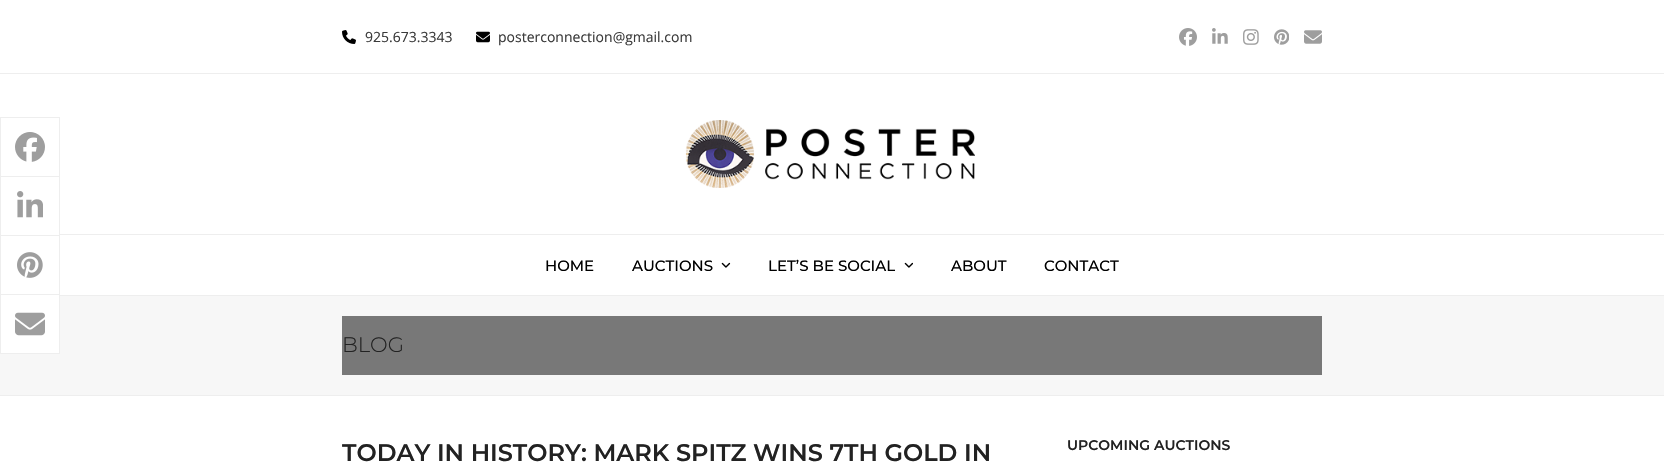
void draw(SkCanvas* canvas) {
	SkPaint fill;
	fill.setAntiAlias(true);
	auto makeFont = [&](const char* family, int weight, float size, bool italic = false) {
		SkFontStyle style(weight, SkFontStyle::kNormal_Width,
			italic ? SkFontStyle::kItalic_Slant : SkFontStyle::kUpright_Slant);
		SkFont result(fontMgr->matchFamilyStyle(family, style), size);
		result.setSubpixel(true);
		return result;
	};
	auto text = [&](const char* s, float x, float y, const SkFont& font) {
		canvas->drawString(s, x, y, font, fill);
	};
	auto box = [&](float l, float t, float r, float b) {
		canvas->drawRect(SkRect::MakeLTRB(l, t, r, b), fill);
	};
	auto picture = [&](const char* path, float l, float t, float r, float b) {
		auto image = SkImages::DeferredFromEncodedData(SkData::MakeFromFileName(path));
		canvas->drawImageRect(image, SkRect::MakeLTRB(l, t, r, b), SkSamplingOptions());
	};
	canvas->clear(0xFFFFFFFF);
	fill.setColor(0xFFEEEEEE);
	box(0, 73, 1664, 74);
	picture("image0.png", 342, 30, 356, 44);
	picture("image1.png", 476, 31, 490, 43);
	picture("image2.png", 1179, 28, 1197, 46);
	picture("image3.png", 1212, 28, 1228, 44);
	picture("image4.png", 1243, 29, 1259, 45);
	picture("image5.png", 1274, 29, 1289, 45);
	picture("image6.png", 1304, 30, 1322, 44);
	picture("image7.png", 685, 120, 975, 188);
	box(60, 234, 1664, 235);
	picture("image8.png", 721, 262, 731, 268);
	picture("image9.png", 904, 262, 913, 268);
	fill.setColor(0xFFF7F7F7);
	box(0, 296, 1664, 395);
	fill.setColor(0xFFEEEEEE);
	box(60, 295, 1664, 296);
	box(0, 395, 1664, 396);
	fill.setColor(0xFF787878);
	box(342, 316, 1322, 375);
	fill.setStyle(SkPaint::kStroke_Style);
	fill.setStrokeWidth(1);
	fill.setColor(0xFFEEEEEE);
	canvas->drawRect(SkRect::MakeLTRB(0.5f, 117.5f, 59.5f, 176.5f), fill);
	picture("image10.png", 15, 132, 45, 162);
	canvas->drawRect(SkRect::MakeLTRB(0.5f, 176.5f, 59.5f, 235.5f), fill);
	picture("image11.png", 17, 191, 43, 218);
	canvas->drawRect(SkRect::MakeLTRB(0.5f, 235.5f, 59.5f, 294.5f), fill);
	picture("image12.png", 17, 252, 43, 278);
	fill.setStyle(SkPaint::kFill_Style);
	fill.setColor(0xFFFFFFFF);
	box(1, 296, 59, 353);
	fill.setStyle(SkPaint::kStroke_Style);
	fill.setColor(0xFFEEEEEE);
	canvas->drawRect(SkRect::MakeLTRB(0.5f, 294.5f, 59.5f, 353.5f), fill);
	picture("image13.png", 15, 312, 45, 336);
	auto font1 = makeFont("Open Sans", 400, 14);
	fill.setStyle(SkPaint::kFill_Style);
	fill.setColor(0xFF3B3B3B);
	text("925.673.3343", 365, 42, font1);
	text("posterconnection@gmail.com", 498, 42, font1);
	auto font2 = makeFont("Montserrat", 500, 15);
	fill.setColor(0xFF000000);
	text("HOME", 545, 271, font2);
	text("AUCTIONS", 632, 271, font2);
	text("LET’S BE SOCIAL", 768, 271, font2);
	text("ABOUT", 951, 271, font2);
	text("CONTACT", 1044, 271, font2);
	auto font3 = makeFont("Montserrat", 300, 21);
	fill.setColor(0xFF222222);
	text("BLOG", 342, 352, font3);
	auto font4 = makeFont("Montserrat", 600, 24);
	text("TODAY IN HISTORY: MARK SPITZ WINS 7TH GOLD IN", 342, 461, font4);
	auto font5 = makeFont("Montserrat", 600, 14);
	text("UPCOMING AUCTIONS", 1067, 450, font5);
}
